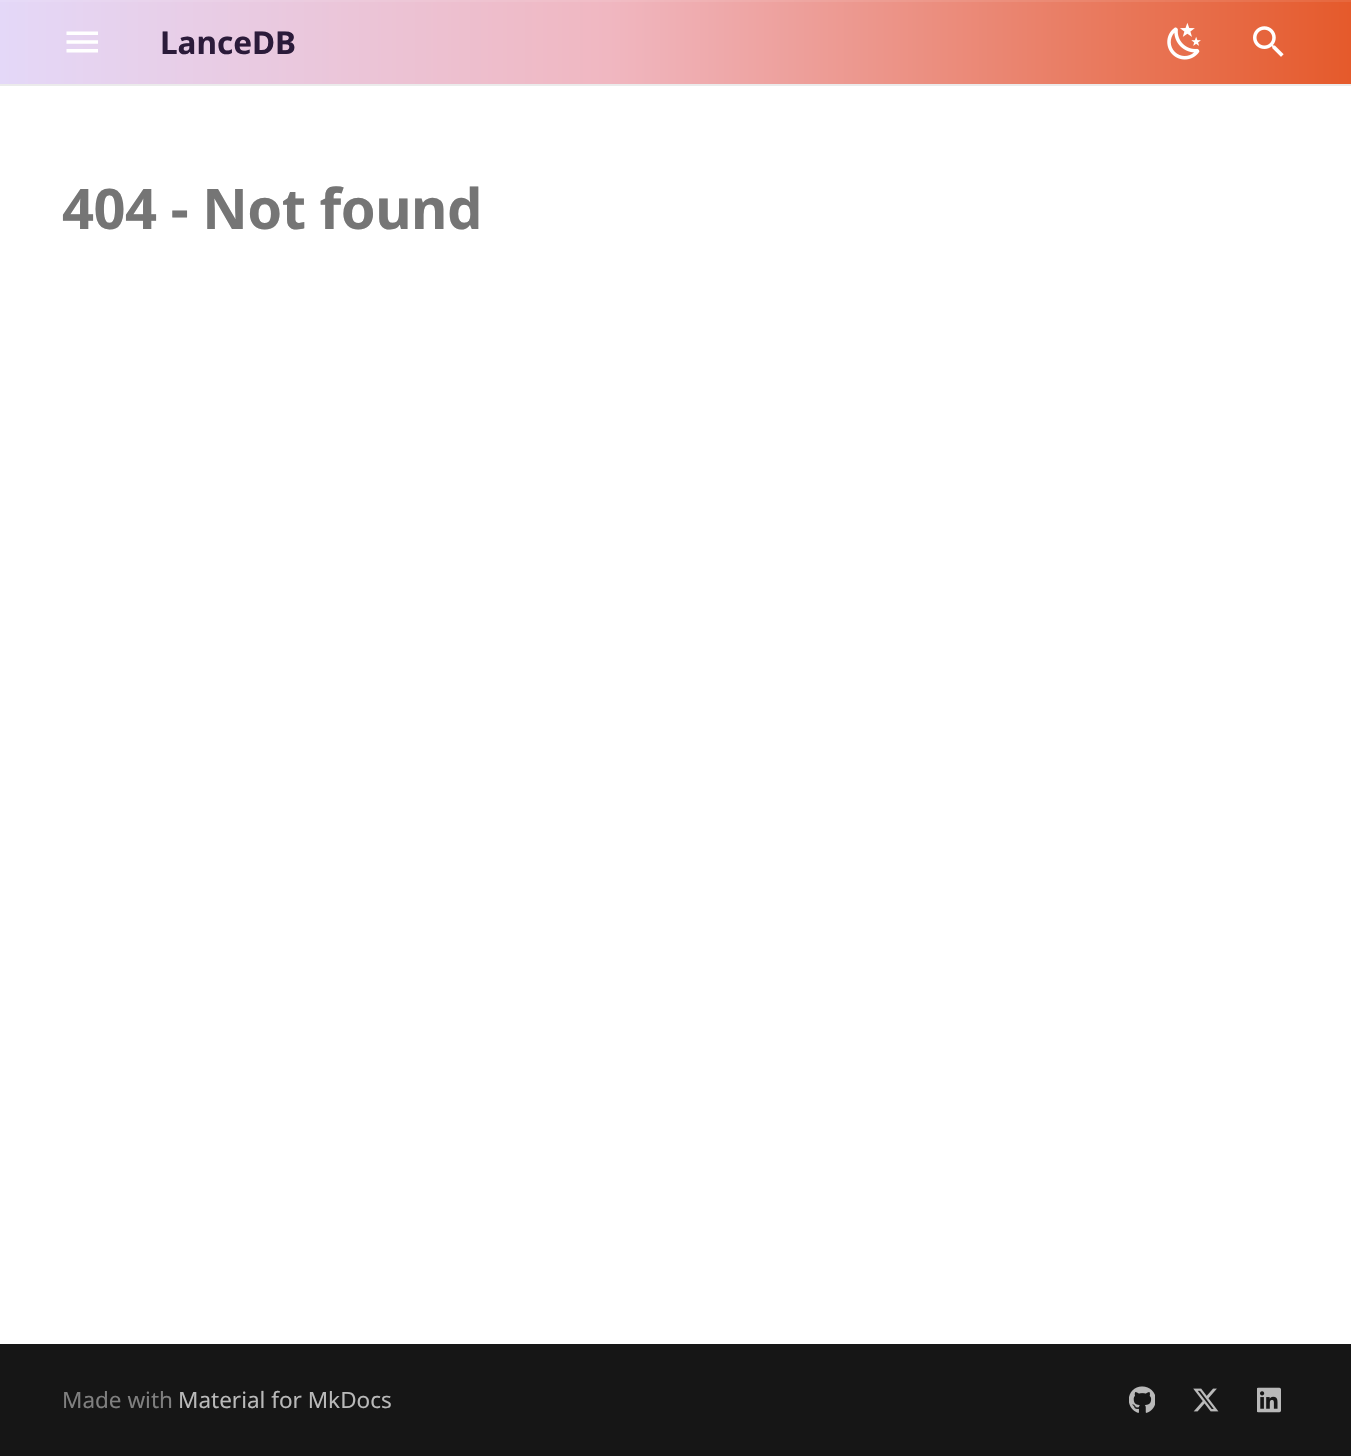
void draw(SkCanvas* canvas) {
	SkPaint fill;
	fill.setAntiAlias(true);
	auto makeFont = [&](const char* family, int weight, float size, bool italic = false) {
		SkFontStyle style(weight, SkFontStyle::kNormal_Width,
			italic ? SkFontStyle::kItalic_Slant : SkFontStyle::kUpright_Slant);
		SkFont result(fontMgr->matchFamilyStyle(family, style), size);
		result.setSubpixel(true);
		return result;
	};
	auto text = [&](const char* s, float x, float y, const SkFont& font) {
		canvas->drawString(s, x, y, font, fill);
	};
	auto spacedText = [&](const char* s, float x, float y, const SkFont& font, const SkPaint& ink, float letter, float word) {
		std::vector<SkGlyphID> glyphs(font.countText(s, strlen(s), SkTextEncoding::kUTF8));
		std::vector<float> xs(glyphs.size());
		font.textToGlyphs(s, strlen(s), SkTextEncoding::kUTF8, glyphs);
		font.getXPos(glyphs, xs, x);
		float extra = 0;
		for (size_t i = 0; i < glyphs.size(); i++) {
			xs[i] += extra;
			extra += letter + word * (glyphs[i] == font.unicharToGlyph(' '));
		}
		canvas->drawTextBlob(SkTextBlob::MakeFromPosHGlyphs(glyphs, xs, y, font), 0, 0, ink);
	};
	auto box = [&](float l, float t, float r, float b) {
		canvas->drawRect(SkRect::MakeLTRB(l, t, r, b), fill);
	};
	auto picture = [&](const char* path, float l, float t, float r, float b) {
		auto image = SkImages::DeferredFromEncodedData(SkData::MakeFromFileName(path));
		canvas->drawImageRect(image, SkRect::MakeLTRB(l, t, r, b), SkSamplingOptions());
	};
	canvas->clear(0xFFFFFFFF);
	fill.setColor(0xFFEBEBEB);
	box(0, 84, 1351, 86);
	{
		const SkColor colors[] = {0xFFE4D8F8, 0xFFF0B7C1, 0xFFE55A2B};
		const float stops[] = {0, 0.45f, 1};
		const SkPoint ends[] = {{0, 42}, {1351, 42}};
		fill.setShader(SkGradientShader::MakeLinear(ends, colors, stops, 3, SkTileMode::kClamp));
		fill.setAlpha(255);
	}
	box(0, 2, 1351, 84);
	{
		const SkColor colors[] = {0xFFE6DBF9, 0xFFF1BDC6, 0xFFE7673C};
		const float stops[] = {0, 0.45f, 1};
		const SkPoint ends[] = {{0, 42}, {1351, 42}};
		fill.setShader(SkGradientShader::MakeLinear(ends, colors, stops, 3, SkTileMode::kClamp));
		fill.setAlpha(255);
	}
	box(0, 0, 1351, 2);
	picture("image0.png", 66, 31, 98, 53);
	picture("image1.png", 1167, 22, 1201, 60);
	picture("image2.png", 1253, 26, 1284, 57);
	fill.setShader(nullptr);
	fill.setColor(0xFF161616);
	box(0, 1344, 1351, 1456);
	picture("image3.png", 1129, 1386, 1155, 1413);
	picture("image4.png", 1193, 1388, 1219, 1412);
	picture("image5.png", 1257, 1387, 1281, 1413);
	auto font1 = makeFont("Noto Sans", 700, 31.5f);
	fill.setColor(0xFF2B1B3A);
	text("LanceDB", 160, 54, font1);
	auto font2 = makeFont("Noto Sans", 700, 56);
	fill.setColor(0xFF757575);
	spacedText("404 - Not found", 62, 229, font2, fill, -0.5f, 0);
	auto font3 = makeFont("Noto Sans", 400, 22.5f);
	fill.setColor(0xFF7F7F7F);
	text("Made with", 62, 1408, font3);
	fill.setColor(0xFFB9B9B9);
	text("Material for MkDocs", 178, 1408, font3);
}
